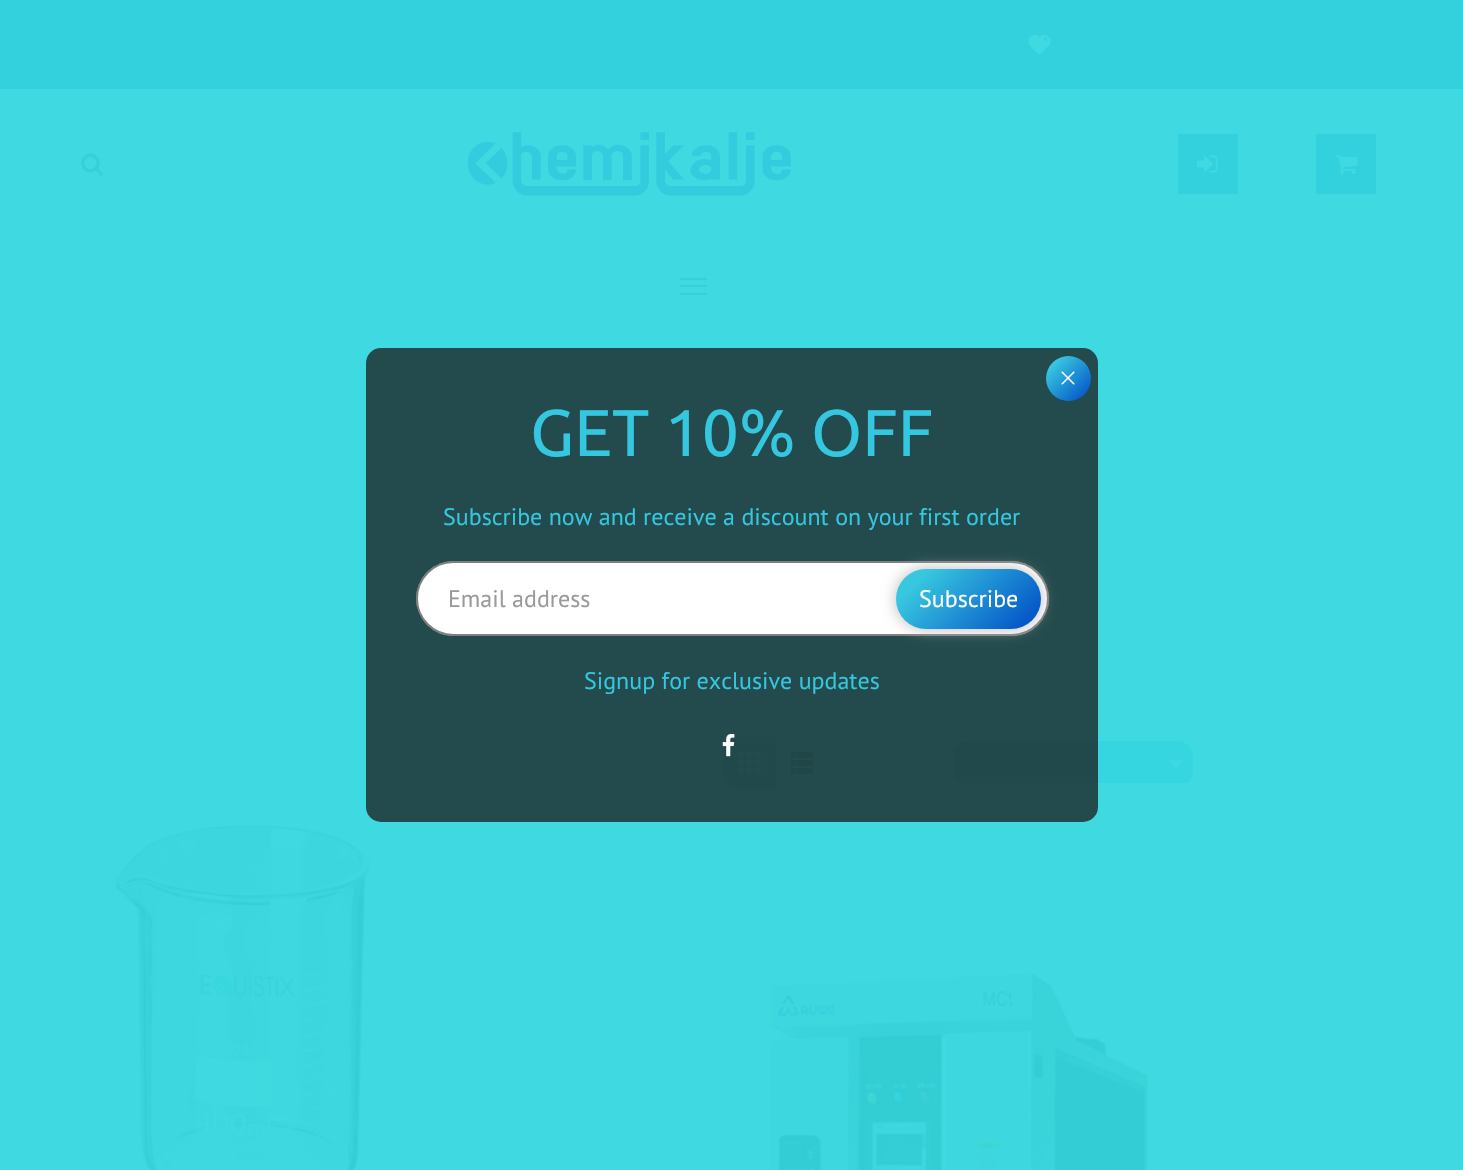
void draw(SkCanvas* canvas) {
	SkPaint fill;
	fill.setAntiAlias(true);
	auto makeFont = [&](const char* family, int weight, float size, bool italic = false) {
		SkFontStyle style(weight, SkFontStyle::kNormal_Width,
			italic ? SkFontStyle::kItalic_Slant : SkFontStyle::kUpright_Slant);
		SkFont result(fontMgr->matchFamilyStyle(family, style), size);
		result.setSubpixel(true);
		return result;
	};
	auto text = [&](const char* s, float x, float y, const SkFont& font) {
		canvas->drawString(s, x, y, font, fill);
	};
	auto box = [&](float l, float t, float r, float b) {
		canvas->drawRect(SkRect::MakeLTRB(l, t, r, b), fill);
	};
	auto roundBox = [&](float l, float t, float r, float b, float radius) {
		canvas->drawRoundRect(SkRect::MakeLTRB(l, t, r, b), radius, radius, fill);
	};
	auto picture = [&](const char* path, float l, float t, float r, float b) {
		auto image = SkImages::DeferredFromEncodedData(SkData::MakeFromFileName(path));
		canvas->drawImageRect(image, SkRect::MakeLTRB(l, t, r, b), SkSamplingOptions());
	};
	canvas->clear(0xFF3FD9E1);
	fill.setColor(0xFF33D1DE);
	box(0, 0, 1463, 89);
	picture("image0.png", 1028, 34, 1051, 55);
	picture("image1.png", 81, 153, 104, 176);
	picture("image2.png", 467, 132, 791, 196);
	box(1178, 134, 1238, 194);
	picture("image3.png", 1197, 155, 1218, 173);
	box(1316, 134, 1376, 194);
	picture("image4.png", 1335, 155, 1358, 175);
	fill.setColor(0xFF36D0D7);
	box(680, 285, 707, 287);
	box(680, 278, 707, 280);
	box(680, 293, 707, 295);
	picture("image5.png", 56, 816, 449, 1170);
	fill.setColor(0xFF35D6DF);
	canvas->drawPath(SkPathBuilder().moveTo(737, 737).lineTo(776, 737).lineTo(776, 789).lineTo(737, 789).cubicTo(729.5f, 789, 723, 782.5f, 723, 775).lineTo(723, 751).cubicTo(723, 743.5f, 729.5f, 737, 737, 737).close().detach(), fill);
	picture("image6.png", 738, 752, 761, 774);
	picture("image7.png", 791, 752, 813, 774);
	canvas->save();
	canvas->clipPath(SkPathBuilder().moveTo(968, 741).lineTo(1178, 741).cubicTo(1186.5f, 741, 1193, 747.5f, 1193, 756).lineTo(1193, 771).cubicTo(1193, 779.5f, 1186.5f, 786, 1178, 786).lineTo(968, 786).cubicTo(959.5f, 786, 953, 779.5f, 953, 771).lineTo(953, 756).cubicTo(953, 747.5f, 959.5f, 741, 968, 741).close().detach(), true);
	canvas->drawPath(SkPathBuilder().moveTo(968, 741).lineTo(1178, 741).cubicTo(1186.5f, 741, 1193, 747.5f, 1193, 756).lineTo(1193, 783).lineTo(953, 783).lineTo(953, 756).cubicTo(953, 747.5f, 959.5f, 741, 968, 741).close().detach(), fill);
	canvas->restore();
	fill.setColor(0xFF3FD9E1);
	canvas->drawPath(SkPathBuilder().moveTo(1170, 760.5f).lineTo(1182, 760.5f).lineTo(1176, 768).close().detach(), fill);
	picture("image8.png", 496, 861, 1418, 1170);
	fill.setColor(0xBF1A1A1A);
	roundBox(366, 348, 1098, 822, 15);
	{
		const SkColor colors[] = {0xFF075AC9, 0xFF37C7DF};
		const float stops[] = {0.12f, 0.83f};
		const SkPoint ends[] = {{1091, 401}, {1046, 356}};
		fill.setShader(SkGradientShader::MakeLinear(ends, colors, stops, 2, SkTileMode::kClamp));
		fill.setAlpha(255);
	}
	canvas->drawCircle(1068.5f, 378.5f, 22.5f, fill);
	picture("image9.png", 1061, 371, 1075, 385);
	fill.setShader(nullptr);
	fill.setColor(0xFFFFFFFF);
	roundBox(416, 561, 1049, 636, 37.5f);
	fill.setStyle(SkPaint::kStroke_Style);
	fill.setStrokeWidth(2);
	fill.setColor(0x80000000);
	canvas->drawRoundRect(SkRect::MakeLTRB(417, 562, 1048, 635), 36.5f, 36.5f, fill);
	fill.setStyle(SkPaint::kFill_Style);
	fill.setColor(0xFFBBBBBB);
	fill.setMaskFilter(SkMaskFilter::MakeBlur(kNormal_SkBlurStyle, 7.5f));
	canvas->drawRoundRect(SkRect::MakeLTRB(896, 569, 1041, 629), 30, 30, fill);
	fill.setMaskFilter(nullptr);
	{
		const SkColor colors[] = {0xFF075AC9, 0xFF37C7DF};
		const float stops[] = {0.12f, 0.83f};
		const SkPoint ends[] = {{1020, 650}, {917, 547}};
		fill.setShader(SkGradientShader::MakeLinear(ends, colors, stops, 2, SkTileMode::kClamp));
		fill.setAlpha(255);
	}
	roundBox(896, 569, 1041, 629, 30);
	picture("image10.png", 722, 733, 735, 757);
	auto font1 = makeFont("Ubuntu", 400, 66);
	fill.setShader(nullptr);
	fill.setColor(0xFF35C7DF);
	text("GET 10% OFF", 530, 456, font1);
	auto font2 = makeFont("PT Sans", 400, 24);
	text("Subscribe now and receive a discount on your first order", 443, 525, font2);
	fill.setColor(0xFF9A9A9A);
	text("Email address", 448, 607, font2);
	fill.setColor(0xFFFFFFFF);
	text("Subscribe", 919, 607, font2);
	fill.setColor(0xFF35C7DF);
	text("Signup for exclusive updates", 584, 689, font2);
}
